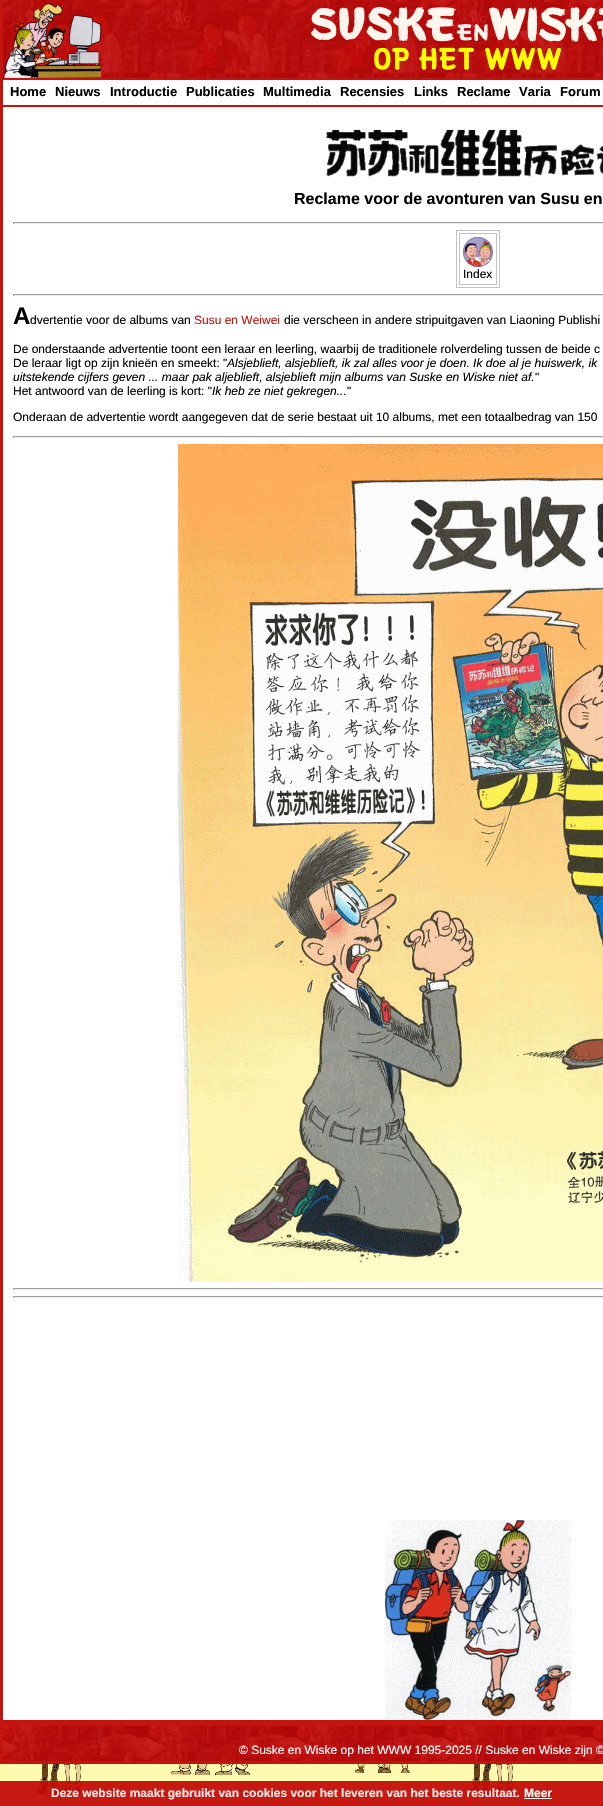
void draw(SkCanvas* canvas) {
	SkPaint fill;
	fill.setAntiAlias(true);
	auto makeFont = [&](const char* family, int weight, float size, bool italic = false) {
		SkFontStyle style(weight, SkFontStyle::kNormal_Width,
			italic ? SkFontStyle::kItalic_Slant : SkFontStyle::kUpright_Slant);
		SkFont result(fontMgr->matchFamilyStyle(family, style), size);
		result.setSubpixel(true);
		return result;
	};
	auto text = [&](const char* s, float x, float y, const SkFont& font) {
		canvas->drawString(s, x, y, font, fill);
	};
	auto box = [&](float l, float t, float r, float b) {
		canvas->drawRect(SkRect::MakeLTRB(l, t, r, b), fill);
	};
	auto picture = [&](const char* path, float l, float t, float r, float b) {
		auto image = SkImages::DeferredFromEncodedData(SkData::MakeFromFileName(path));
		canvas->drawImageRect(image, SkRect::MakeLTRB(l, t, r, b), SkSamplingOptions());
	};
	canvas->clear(0xFFFFFFFF);
	picture("image0.png", 0, 1764, 603, 1806);
	fill.setStyle(SkPaint::kStroke_Style);
	fill.setStrokeWidth(3);
	fill.setColor(0xFFC3140D);
	canvas->drawRect(SkRect::MakeLTRB(1.5f, -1.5f, 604.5f, 1721.5f), fill);
	picture("image1.png", 3, 0, 603, 78);
	picture("image2.png", 3, 3, 101, 78);
	picture("image3.png", 311, 7, 603, 70);
	fill.setStyle(SkPaint::kFill_Style);
	box(3, 78, 603, 80);
	box(3, 105, 603, 107);
	picture("image4.png", 326, 129, 603, 177);
	fill.setColor(0xFF9F9F9F);
	box(13, 222, 603, 223);
	fill.setColor(0xFFEEEEEE);
	box(13, 223, 603, 224);
	fill.setColor(0xFF9F9F9F);
	box(13, 222, 14, 224);
	fill.setStyle(SkPaint::kStroke_Style);
	fill.setStrokeWidth(1);
	fill.setColor(0xFFC0C0C0);
	canvas->drawRect(SkRect::MakeLTRB(456.5f, 230.5f, 499.5f, 287.5f), fill);
	canvas->drawRect(SkRect::MakeLTRB(459.5f, 233.5f, 496.5f, 284.5f), fill);
	picture("image5.png", 463, 237, 493, 267);
	fill.setStyle(SkPaint::kFill_Style);
	fill.setColor(0xFF9F9F9F);
	box(13, 294, 603, 295);
	fill.setColor(0xFFEEEEEE);
	box(13, 295, 603, 296);
	fill.setColor(0xFF9F9F9F);
	box(13, 294, 14, 296);
	box(13, 436, 603, 437);
	fill.setColor(0xFFEEEEEE);
	box(13, 437, 603, 438);
	fill.setColor(0xFF9F9F9F);
	box(13, 436, 14, 438);
	picture("image6.png", 178, 444, 603, 1282);
	box(13, 1288, 603, 1289);
	fill.setColor(0xFFEEEEEE);
	box(13, 1289, 603, 1290);
	fill.setColor(0xFF9F9F9F);
	box(13, 1288, 14, 1290);
	box(13, 1296, 603, 1297);
	fill.setColor(0xFFEEEEEE);
	box(13, 1297, 603, 1298);
	fill.setColor(0xFF9F9F9F);
	box(13, 1296, 14, 1298);
	picture("image7.png", 385, 1520, 571, 1720);
	picture("image8.png", 3, 1726, 603, 1761);
	fill.setStyle(SkPaint::kStroke_Style);
	fill.setStrokeWidth(3);
	fill.setColor(0xFFC3140D);
	canvas->drawRect(SkRect::MakeLTRB(1.5f, 1724.5f, 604.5f, 1762.5f), fill);
	fill.setStyle(SkPaint::kFill_Style);
	fill.setColor(0xE6BF0000);
	box(0, 1781, 603, 1806);
	fill.setColor(0xFFFFFFF7);
	box(524, 1798, 552, 1799);
	auto font1 = makeFont("Liberation Sans", 700, 13);
	fill.setColor(0xFF000000);
	text("Home", 10, 96, font1);
	text("Nieuws", 55, 96, font1);
	text("Introductie", 110, 96, font1);
	text("Publicaties", 186, 96, font1);
	text("Multimedia", 263, 96, font1);
	text("Recensies", 340, 96, font1);
	text("Links", 414, 96, font1);
	text("Reclame", 457, 96, font1);
	text("Varia", 519, 96, font1);
	text("Forum", 560, 96, font1);
	auto font2 = makeFont("Liberation Sans", 700, 16);
	text("Reclame voor de avonturen van Susu en", 294, 204, font2);
	auto font3 = makeFont("Liberation Sans", 400, 12);
	text("Index", 463, 278, font3);
	auto font4 = makeFont("Liberation Sans", 700, 24);
	text("A", 13, 324, font4);
	text("dvertentie voor de albums van", 30, 324, font3);
	fill.setColor(0xFFC3140D);
	text("Susu en Weiwei", 194, 324, font3);
	fill.setColor(0xFF000000);
	text("die verscheen in andere stripuitgaven van Liaoning Publishi", 284, 324, font3);
	text("De onderstaande advertentie toont een leraar en leerling, waarbij de traditionele rolverdeling tussen de beide c", 13, 353, font3);
	text("De leraar ligt op zijn knieën en smeekt: \"", 13, 367, font3);
	auto font5 = makeFont("Liberation Sans", 400, 12, true);
	text("Alsjeblieft, alsjeblieft, ik zal alles voor je doen. Ik doe al je huiswerk, ik", 227, 367, font5);
	text("uitstekende cijfers geven ... maar pak aljeblieft, alsjeblieft mijn albums van Suske en Wiske niet af.", 13, 381, font5);
	text("\"", 535, 381, font3);
	text("Het antwoord van de leerling is kort: \"", 13, 395, font3);
	text("Ik heb ze niet gekregen...", 212, 395, font5);
	text("\"", 347, 395, font3);
	text("Onderaan de advertentie wordt aangegeven dat de serie bestaat uit 10 albums, met een totaalbedrag van 150", 13, 421, font3);
	fill.setColor(0xFFFFFFFF);
	text("© Suske en Wiske op het WWW 1995-2025 // Suske en Wiske zijn ©", 239, 1754, font3);
	auto font6 = makeFont("Liberation Sans", 700, 12);
	fill.setColor(0xFFF9E8E7);
	text("Deze website maakt gebruikt van cookies voor het leveren van het beste resultaat.", 51, 1797, font6);
	fill.setColor(0xFFFFFFF7);
	text("Meer", 524, 1797, font6);
}
